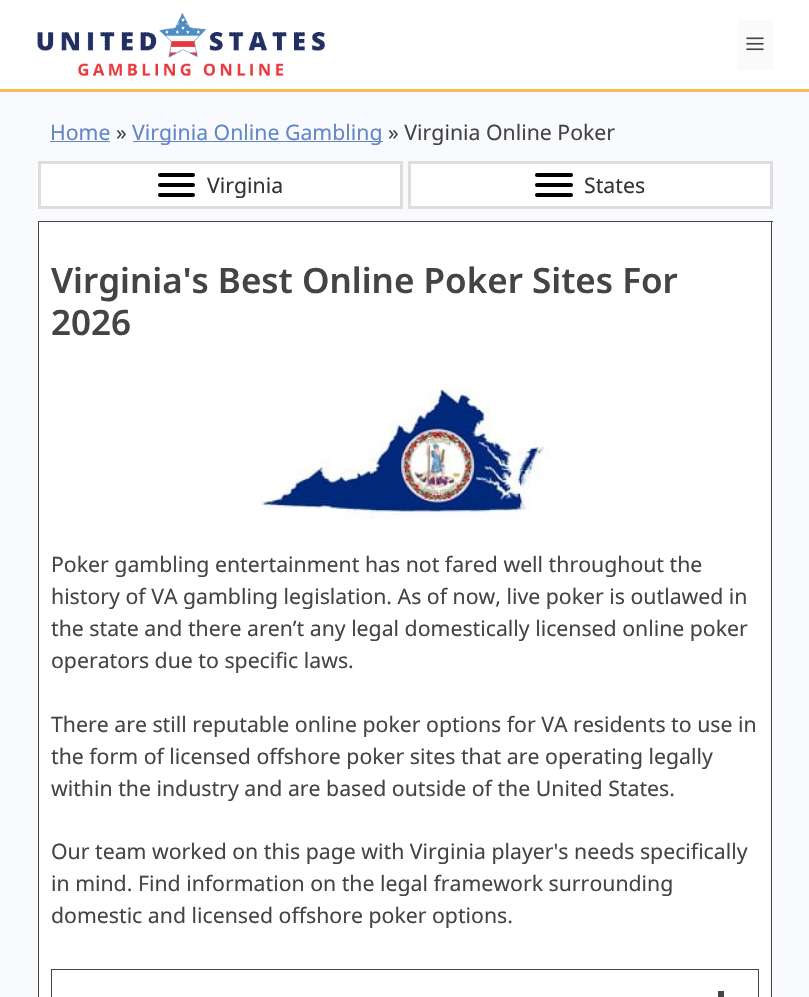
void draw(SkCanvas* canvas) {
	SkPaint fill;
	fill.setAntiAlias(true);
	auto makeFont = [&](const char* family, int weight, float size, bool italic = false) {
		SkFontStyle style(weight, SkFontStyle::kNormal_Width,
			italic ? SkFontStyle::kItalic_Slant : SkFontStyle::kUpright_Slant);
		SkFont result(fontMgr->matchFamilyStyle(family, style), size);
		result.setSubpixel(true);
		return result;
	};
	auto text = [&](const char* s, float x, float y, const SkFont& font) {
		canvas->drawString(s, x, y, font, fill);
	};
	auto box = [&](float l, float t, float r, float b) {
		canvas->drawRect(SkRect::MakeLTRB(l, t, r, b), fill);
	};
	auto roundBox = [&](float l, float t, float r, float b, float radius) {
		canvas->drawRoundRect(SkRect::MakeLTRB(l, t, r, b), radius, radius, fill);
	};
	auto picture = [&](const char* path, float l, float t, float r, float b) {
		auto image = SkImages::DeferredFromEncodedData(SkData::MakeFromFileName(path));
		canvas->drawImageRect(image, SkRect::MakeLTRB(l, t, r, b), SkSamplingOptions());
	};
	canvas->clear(0xFFF8FAFD);
	fill.setColor(0xFFFFFFFF);
	box(0, 0, 809, 89);
	fill.setColor(0xFFF7B75D);
	box(0, 89, 809, 92);
	picture("image0.png", 37, 12, 325, 77);
	fill.setColor(0xFFFAFAFA);
	box(738, 20, 773, 70);
	picture("image1.png", 746, 37, 764, 51);
	fill.setColor(0xFF6287C5);
	box(50, 141, 110, 142);
	box(133, 141, 383, 142);
	fill.setColor(0xFFFFFFFF);
	canvas->drawRect(SkRect::MakeLTRB(39.5f, 162.5f, 401.5f, 207.5f), fill);
	fill.setStyle(SkPaint::kStroke_Style);
	fill.setStrokeWidth(3);
	fill.setColor(0xFFDDDDDD);
	canvas->drawRect(SkRect::MakeLTRB(39.5f, 162.5f, 401.5f, 207.5f), fill);
	fill.setStyle(SkPaint::kFill_Style);
	fill.setColor(0xFF000000);
	roundBox(158, 183, 195, 187, 2);
	roundBox(158, 173, 195, 177, 2);
	roundBox(158, 193, 195, 197, 2);
	fill.setColor(0xFFFFFFFF);
	canvas->drawRect(SkRect::MakeLTRB(409.5f, 162.5f, 771.5f, 207.5f), fill);
	fill.setStyle(SkPaint::kStroke_Style);
	fill.setColor(0xFFDDDDDD);
	canvas->drawRect(SkRect::MakeLTRB(409.5f, 162.5f, 771.5f, 207.5f), fill);
	fill.setStyle(SkPaint::kFill_Style);
	fill.setColor(0xFF000000);
	roundBox(535, 183, 573, 187, 2);
	roundBox(535, 173, 573, 177, 2);
	roundBox(535, 193, 573, 197, 2);
	fill.setColor(0xFFFFFFFF);
	box(39, 223, 771, 997);
	fill.setColor(0xFF444444);
	box(38, 221, 773, 222);
	box(771, 221, 772, 997);
	box(38, 221, 39, 997);
	picture("image2.png", 260, 388, 550, 521);
	fill.setStyle(SkPaint::kStroke_Style);
	fill.setStrokeWidth(1);
	canvas->drawRect(SkRect::MakeLTRB(51.5f, 969.5f, 758.5f, 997.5f), fill);
	fill.setStyle(SkPaint::kFill_Style);
	box(718, 991, 724, 997);
	auto font1 = makeFont("Noto Sans", 400, 21.25f);
	fill.setColor(0xFF6287C5);
	text("Home", 50, 140, font1);
	fill.setColor(0xFF444444);
	text("»", 116, 140, font1);
	fill.setColor(0xFF6287C5);
	text("Virginia Online Gambling", 132, 140, font1);
	fill.setColor(0xFF444444);
	text("» Virginia Online Poker", 388, 140, font1);
	fill.setColor(0xFF333333);
	text("Virginia", 207, 193, font1);
	text("States", 584, 193, font1);
	auto font2 = makeFont("Noto Sans", 600, 35);
	fill.setColor(0xFF444444);
	text("Virginia's Best Online Poker Sites For", 51, 293, font2);
	text("2026", 51, 335, font2);
	text("Poker gambling entertainment has not fared well throughout the", 51, 572, font1);
	text("history of VA gambling legislation. As of now, live poker is outlawed in", 51, 604, font1);
	text("the state and there aren’t any legal domestically licensed online poker", 51, 636, font1);
	text("operators due to specific laws.", 51, 668, font1);
	text("There are still reputable online poker options for VA residents to use in", 51, 732, font1);
	text("the form of licensed offshore poker sites that are operating legally", 51, 764, font1);
	text("within the industry and are based outside of the United States.", 51, 796, font1);
	text("Our team worked on this page with Virginia player's needs specifically", 51, 859, font1);
	text("in mind. Find information on the legal framework surrounding", 51, 891, font1);
	text("domestic and licensed offshore poker options.", 51, 923, font1);
}
